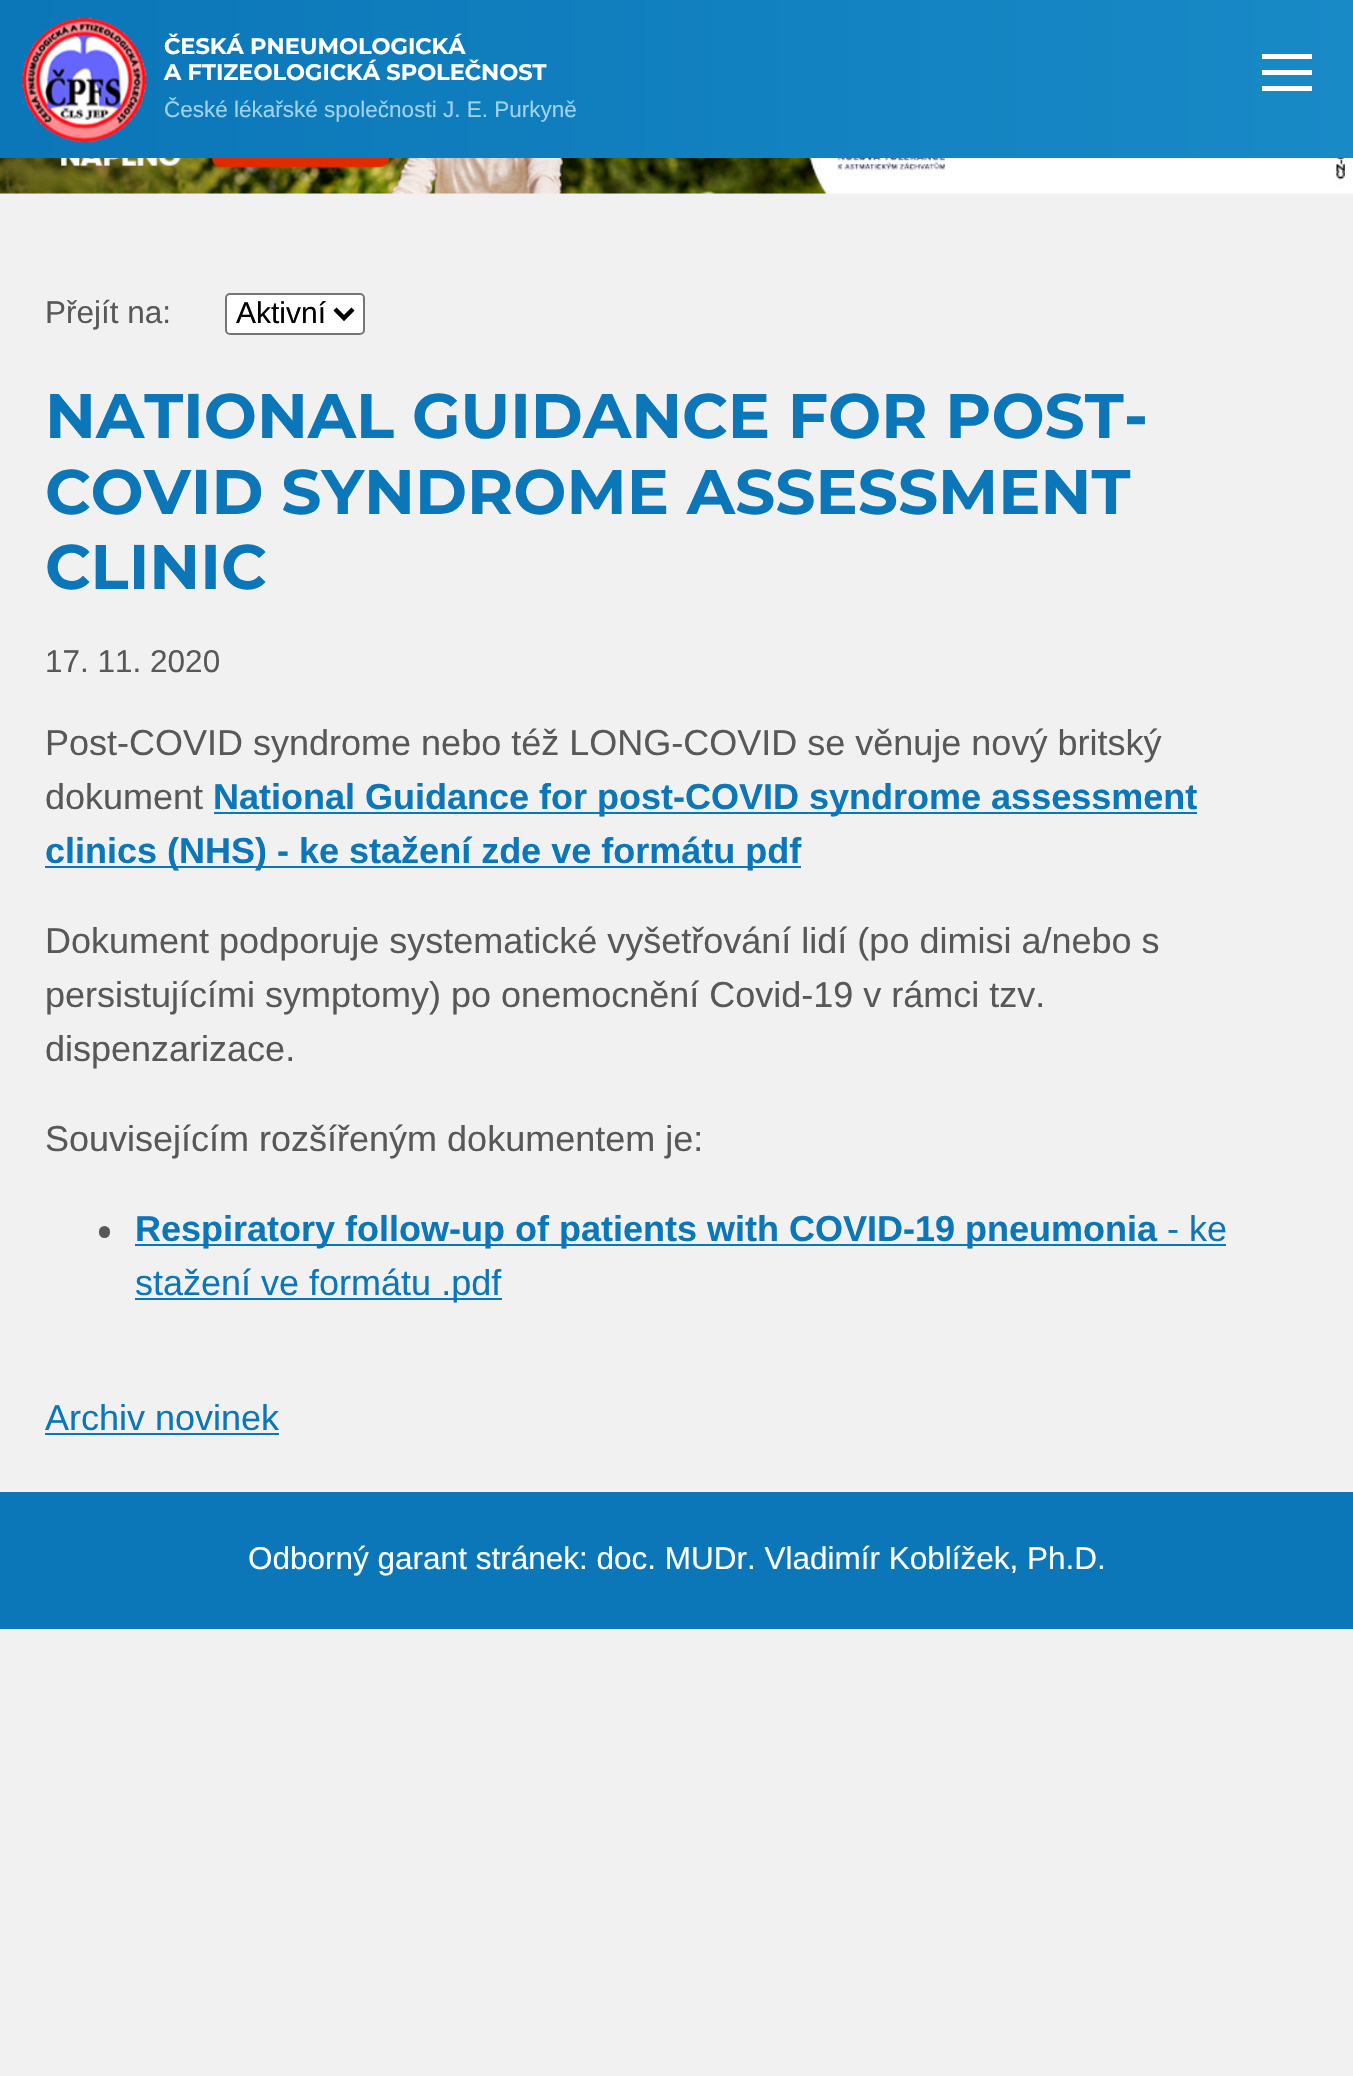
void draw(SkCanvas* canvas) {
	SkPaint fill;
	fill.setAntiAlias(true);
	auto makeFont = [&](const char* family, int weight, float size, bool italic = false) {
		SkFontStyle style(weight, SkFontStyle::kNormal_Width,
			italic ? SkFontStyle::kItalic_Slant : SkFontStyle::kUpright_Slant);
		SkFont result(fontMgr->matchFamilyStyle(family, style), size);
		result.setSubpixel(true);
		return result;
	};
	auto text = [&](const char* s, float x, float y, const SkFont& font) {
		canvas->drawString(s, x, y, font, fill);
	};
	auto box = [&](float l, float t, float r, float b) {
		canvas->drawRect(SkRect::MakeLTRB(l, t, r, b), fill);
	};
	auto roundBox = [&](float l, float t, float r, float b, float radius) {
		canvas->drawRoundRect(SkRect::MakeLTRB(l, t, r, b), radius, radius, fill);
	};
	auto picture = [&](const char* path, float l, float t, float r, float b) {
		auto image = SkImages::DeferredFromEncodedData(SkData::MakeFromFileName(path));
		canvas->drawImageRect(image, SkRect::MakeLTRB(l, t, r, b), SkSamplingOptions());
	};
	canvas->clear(0xFFF1F1F1);
	{
		const SkColor colors[] = {0xFF0B76B8, 0xFF188AC6};
		const float stops[] = {0, 1};
		const SkPoint ends[] = {{0, 79}, {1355, 79}};
		fill.setShader(SkGradientShader::MakeLinear(ends, colors, stops, 2, SkTileMode::kClamp));
		fill.setAlpha(255);
	}
	box(0, 0, 1353, 158);
	picture("image0.png", 22, 17, 147, 143);
	fill.setShader(nullptr);
	fill.setColor(0xFFFFFFFF);
	box(1262, 54, 1312, 59);
	box(1262, 70, 1312, 75);
	box(1262, 86, 1312, 91);
	canvas->drawRoundRect(SkRect::MakeLTRB(226, 294, 364, 334), 4, 4, fill);
	fill.setStyle(SkPaint::kStroke_Style);
	fill.setStrokeWidth(2);
	fill.setColor(0xFF767676);
	canvas->drawRoundRect(SkRect::MakeLTRB(226, 294, 364, 334), 4, 4, fill);
	fill.setStrokeWidth(4.5f);
	fill.setColor(0xFF000000);
	canvas->drawPath(SkPathBuilder().moveTo(335, 309).lineTo(344, 318).lineTo(353, 309).detach(), fill);
	fill.setStyle(SkPaint::kFill_Style);
	fill.setColor(0xFF0B76B8);
	box(214, 812, 1197, 814);
	box(45, 866, 801, 868);
	fill.setColor(0xFF585858);
	roundBox(99, 1226, 110, 1238, 5.5f);
	fill.setColor(0xFF0B76B8);
	box(135, 1244, 1157, 1246);
	box(1157, 1244, 1226, 1246);
	box(135, 1298, 502, 1300);
	box(45, 1433, 279, 1435);
	box(0, 1492, 1353, 1629);
	picture("image1.png", 0, 158, 1353, 194);
	auto font1 = makeFont("Montserrat", 100, 22.5f);
	fill.setColor(0xFFFFFFFF);
	text("ČESKÁ PNEUMOLOGICKÁ", 164, 54, font1);
	text("A FTIZEOLOGICKÁ SPOLEČNOST", 164, 80, font1);
	auto font2 = makeFont("Liberation Sans", 400, 22.5f);
	fill.setColor(0xFF9FD3F1);
	text("České lékařské společnosti J. E. Purkyně", 164, 117, font2);
	auto font3 = makeFont("Liberation Sans", 400, 31.5f);
	fill.setColor(0xFF585858);
	text("Přejít na:", 45, 323, font3);
	auto font4 = makeFont("Liberation Sans", 400, 30);
	fill.setColor(0xFF000000);
	text("Aktivní", 236, 323, font4);
	auto font5 = makeFont("Montserrat", 100, 63);
	fill.setColor(0xFF0B76B8);
	text("NATIONAL GUIDANCE FOR POST-", 45, 438, font5);
	text("COVID SYNDROME ASSESSMENT", 45, 514, font5);
	text("CLINIC", 45, 589, font5);
	fill.setColor(0xFF585858);
	text("17. 11. 2020", 45, 672, font3);
	auto font6 = makeFont("Liberation Sans", 400, 36);
	text("Post-COVID syndrome nebo též LONG-COVID se věnuje nový britský", 45, 755, font6);
	text("dokument", 45, 809, font6);
	auto font7 = makeFont("Liberation Sans", 700, 36);
	fill.setColor(0xFF0B76B8);
	text("National Guidance for post-COVID syndrome assessment", 213, 809, font7);
	text("clinics (NHS) - ke stažení zde ve formátu pdf", 45, 863, font7);
	fill.setColor(0xFF585858);
	text("Dokument podporuje systematické vyšetřování lidí (po dimisi a/nebo s", 45, 953, font6);
	text("persistujícími symptomy) po onemocnění Covid-19 v rámci tzv.", 45, 1007, font6);
	text("dispenzarizace.", 45, 1061, font6);
	text("Souvisejícím rozšířeným dokumentem je:", 45, 1151, font6);
	fill.setColor(0xFF0B76B8);
	text("Respiratory follow-up of patients with COVID-19 pneumonia", 135, 1241, font7);
	text("- ke", 1167, 1241, font6);
	text("stažení ve formátu .pdf", 135, 1295, font6);
	text("Archiv novinek", 45, 1430, font6);
	fill.setColor(0xFFFFFFFF);
	text("Odborný garant stránek: doc. MUDr. Vladimír Koblížek, Ph.D.", 248, 1569, font3);
}
